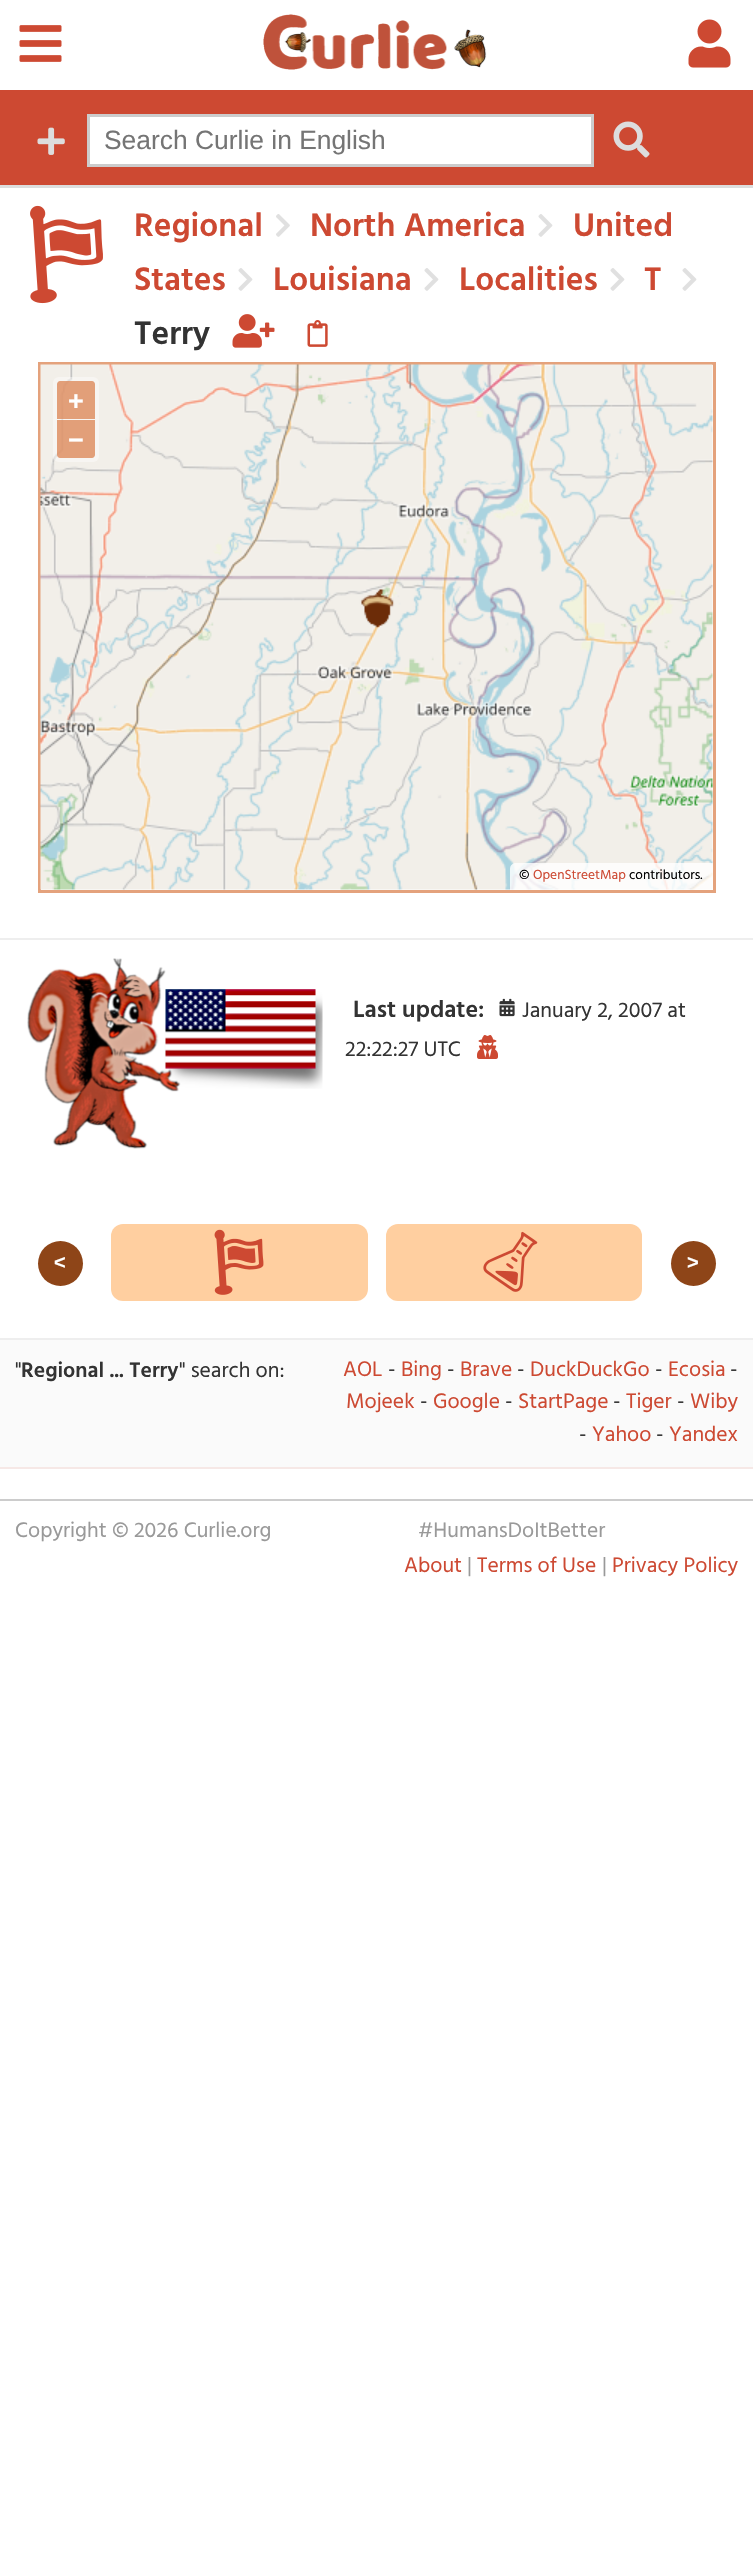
void draw(SkCanvas* canvas) {
	SkPaint fill;
	fill.setAntiAlias(true);
	auto makeFont = [&](const char* family, int weight, float size, bool italic = false) {
		SkFontStyle style(weight, SkFontStyle::kNormal_Width,
			italic ? SkFontStyle::kItalic_Slant : SkFontStyle::kUpright_Slant);
		SkFont result(fontMgr->matchFamilyStyle(family, style), size);
		result.setSubpixel(true);
		return result;
	};
	auto text = [&](const char* s, float x, float y, const SkFont& font) {
		canvas->drawString(s, x, y, font, fill);
	};
	auto box = [&](float l, float t, float r, float b) {
		canvas->drawRect(SkRect::MakeLTRB(l, t, r, b), fill);
	};
	auto roundBox = [&](float l, float t, float r, float b, float radius) {
		canvas->drawRoundRect(SkRect::MakeLTRB(l, t, r, b), radius, radius, fill);
	};
	auto picture = [&](const char* path, float l, float t, float r, float b) {
		auto image = SkImages::DeferredFromEncodedData(SkData::MakeFromFileName(path));
		canvas->drawImageRect(image, SkRect::MakeLTRB(l, t, r, b), SkSamplingOptions());
	};
	canvas->clear(0xFFFFFFFF);
	picture("image0.png", 19, 25, 62, 62);
	picture("image1.png", 263, 14, 487, 70);
	picture("image2.png", 688, 19, 731, 68);
	fill.setColor(0xFFCD4932);
	box(0, 90, 753, 185);
	fill.setColor(0xFFDDDDDD);
	box(0, 185, 753, 188);
	picture("image3.png", 37, 127, 65, 155);
	fill.setColor(0xFFFFFFFF);
	canvas->drawRect(SkRect::MakeLTRB(88.5f, 115.5f, 592.5f, 165.5f), fill);
	fill.setStyle(SkPaint::kStroke_Style);
	fill.setStrokeWidth(3);
	fill.setColor(0xFFCCCCCC);
	canvas->drawRect(SkRect::MakeLTRB(88.5f, 115.5f, 592.5f, 165.5f), fill);
	picture("image4.png", 613, 121, 650, 158);
	picture("image5.png", 30, 205, 103, 304);
	picture("image6.png", 276, 214, 290, 237);
	picture("image7.png", 538, 214, 553, 237);
	picture("image7.png", 238, 268, 253, 291);
	picture("image7.png", 424, 268, 439, 291);
	picture("image7.png", 610, 268, 625, 291);
	picture("image7.png", 682, 268, 697, 291);
	picture("image8.png", 232, 314, 275, 348);
	picture("image9.png", 307, 320, 328, 347);
	fill.setColor(0xFFE4A27C);
	canvas->drawRect(SkRect::MakeLTRB(39.5f, 363.5f, 714.5f, 891.5f), fill);
	picture("image10.png", 40, 364, 713, 890);
	fill.setStyle(SkPaint::kFill_Style);
	fill.setColor(0x66FFFFFF);
	roundBox(53, 377, 99, 462, 6);
	fill.setColor(0xC2DC8453);
	canvas->drawPath(SkPathBuilder().moveTo(60, 381).lineTo(92, 381).cubicTo(93.5f, 381, 95, 382.5f, 95, 384).lineTo(95, 419).lineTo(57, 419).lineTo(57, 384).cubicTo(57, 382.5f, 58.5f, 381, 60, 381).close().detach(), fill);
	canvas->drawPath(SkPathBuilder().moveTo(57, 420).lineTo(95, 420).lineTo(95, 455).cubicTo(95, 456.5f, 93.5f, 458, 92, 458).lineTo(60, 458).cubicTo(58.5f, 458, 57, 456.5f, 57, 455).close().detach(), fill);
	fill.setColor(0xCCFFFFFF);
	canvas->drawPath(SkPathBuilder().moveTo(516, 863).lineTo(713, 863).lineTo(713, 890).lineTo(510, 890).lineTo(510, 869).cubicTo(510, 865.5f, 512.5f, 863, 516, 863).close().detach(), fill);
	fill.setColor(0xFFEEEEEE);
	box(0, 938, 753, 940);
	picture("image11.png", 27, 958, 323, 1149);
	picture("image12.png", 499, 998, 515, 1017);
	picture("image13.png", 477, 1035, 498, 1059);
	fill.setColor(0xFFFFCFA0);
	roundBox(111, 1224, 368, 1301, 12);
	picture("image14.png", 214, 1229, 264, 1295);
	roundBox(386, 1224, 642, 1301, 12);
	picture("image15.png", 483, 1231, 538, 1292);
	fill.setColor(0xFF8E4518);
	canvas->drawCircle(60.5f, 1263.5f, 22.5f, fill);
	canvas->drawCircle(693.5f, 1263.5f, 22.5f, fill);
	fill.setColor(0xFFFAFAFA);
	box(0, 1340, 753, 1467);
	fill.setColor(0xFFEEEEEE);
	box(0, 1338, 753, 1340);
	fill.setColor(0xFFF6E8E6);
	box(0, 1467, 753, 1469);
	fill.setColor(0xFFCCCCCC);
	box(0, 1499, 753, 1501);
	auto font1 = makeFont("Liberation Sans", 400, 26.4f);
	fill.setColor(0xFF757575);
	text("Search Curlie in English", 104, 149, font1);
	auto font2 = makeFont("Hind", 600, 33.5f);
	fill.setColor(0xFFCD4932);
	text("Regional", 134, 236, font2);
	text("North America", 310, 236, font2);
	text("United", 573, 236, font2);
	text("States", 134, 290, font2);
	text("Louisiana", 273, 290, font2);
	text("Localities", 459, 290, font2);
	text("T", 644, 290, font2);
	fill.setColor(0xFF333333);
	text("Terry", 134, 344, font2);
	auto font3 = makeFont("Liberation Sans", 700, 27);
	fill.setColor(0xFFFFFFFF);
	text("+", 68, 410, font3);
	text("−", 68, 449, font3);
	auto font4 = makeFont("Hind", 400, 13.5f);
	fill.setColor(0xFF000000);
	text("©", 519, 879, font4);
	fill.setColor(0xFFCD4932);
	text("OpenStreetMap", 533, 879, font4);
	fill.setColor(0xFF000000);
	text("contributors.", 629, 879, font4);
	auto font5 = makeFont("Hind", 600, 24);
	fill.setColor(0xFF333333);
	text("Last update:", 353, 1017, font5);
	auto font6 = makeFont("Hind", 400, 21.6f);
	text("January 2, 2007 at", 522, 1017, font6);
	text("22:22:27 UTC", 345, 1056, font6);
	auto font7 = makeFont("Liberation Sans", 700, 20);
	fill.setColor(0xFFFFFFFF);
	text("<", 54, 1269, font7);
	text(">", 687, 1269, font7);
	fill.setColor(0xFF333333);
	text("\"", 15, 1377, font6);
	auto font8 = makeFont("Hind", 600, 21.6f);
	text("Regional ... Terry", 21, 1377, font8);
	text("\" search on:", 179, 1377, font6);
	fill.setColor(0xFFCD4932);
	text("AOL", 343, 1376, font6);
	fill.setColor(0xFF333333);
	text("-", 388, 1376, font6);
	fill.setColor(0xFFCD4932);
	text("Bing", 401, 1376, font6);
	fill.setColor(0xFF333333);
	text("-", 447, 1376, font6);
	fill.setColor(0xFFCD4932);
	text("Brave", 460, 1376, font6);
	fill.setColor(0xFF333333);
	text("-", 517, 1376, font6);
	fill.setColor(0xFFCD4932);
	text("DuckDuckGo", 530, 1376, font6);
	fill.setColor(0xFF333333);
	text("-", 655, 1376, font6);
	fill.setColor(0xFFCD4932);
	text("Ecosia", 668, 1376, font6);
	fill.setColor(0xFF333333);
	text("-", 730, 1376, font6);
	fill.setColor(0xFFCD4932);
	text("Mojeek", 346, 1408, font6);
	fill.setColor(0xFF333333);
	text("-", 420, 1408, font6);
	fill.setColor(0xFFCD4932);
	text("Google", 433, 1408, font6);
	fill.setColor(0xFF333333);
	text("-", 505, 1408, font6);
	fill.setColor(0xFFCD4932);
	text("StartPage", 518, 1408, font6);
	fill.setColor(0xFF333333);
	text("-", 613, 1408, font6);
	fill.setColor(0xFFCD4932);
	text("Tiger", 626, 1408, font6);
	fill.setColor(0xFF333333);
	text("-", 677, 1408, font6);
	fill.setColor(0xFFCD4932);
	text("Wiby", 690, 1408, font6);
	fill.setColor(0xFF333333);
	text("-", 579, 1441, font6);
	fill.setColor(0xFFCD4932);
	text("Yahoo", 592, 1441, font6);
	fill.setColor(0xFF333333);
	text("-", 656, 1441, font6);
	fill.setColor(0xFFCD4932);
	text("Yandex", 669, 1441, font6);
	fill.setColor(0xFF999999);
	text("Copyright © 2026 Curlie.org", 15, 1537, font6);
	text("#HumansDoItBetter", 418, 1537, font6);
	fill.setColor(0xFFCD4932);
	text("About", 404, 1572, font6);
	fill.setColor(0xFF999999);
	text("|", 467, 1572, font6);
	fill.setColor(0xFFCD4932);
	text("Terms of Use", 477, 1572, font6);
	fill.setColor(0xFF999999);
	text("|", 602, 1572, font6);
	fill.setColor(0xFFCD4932);
	text("Privacy Policy", 612, 1572, font6);
}
